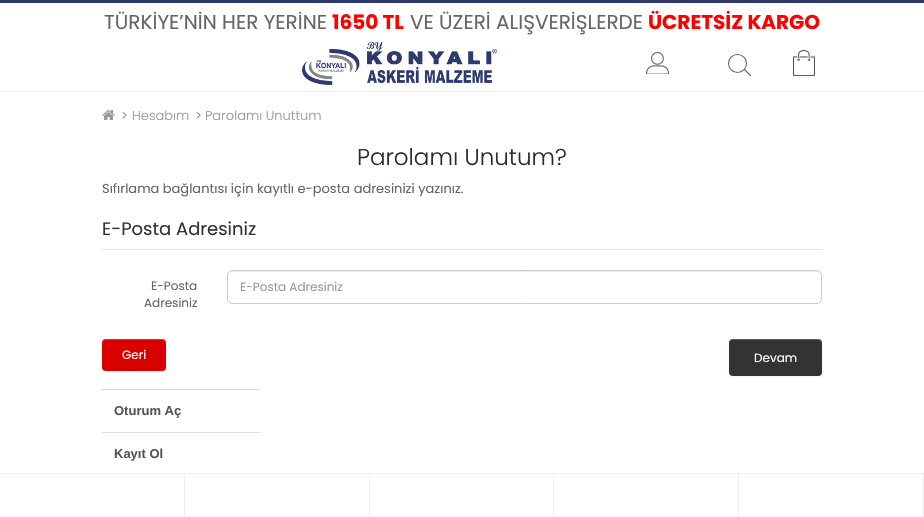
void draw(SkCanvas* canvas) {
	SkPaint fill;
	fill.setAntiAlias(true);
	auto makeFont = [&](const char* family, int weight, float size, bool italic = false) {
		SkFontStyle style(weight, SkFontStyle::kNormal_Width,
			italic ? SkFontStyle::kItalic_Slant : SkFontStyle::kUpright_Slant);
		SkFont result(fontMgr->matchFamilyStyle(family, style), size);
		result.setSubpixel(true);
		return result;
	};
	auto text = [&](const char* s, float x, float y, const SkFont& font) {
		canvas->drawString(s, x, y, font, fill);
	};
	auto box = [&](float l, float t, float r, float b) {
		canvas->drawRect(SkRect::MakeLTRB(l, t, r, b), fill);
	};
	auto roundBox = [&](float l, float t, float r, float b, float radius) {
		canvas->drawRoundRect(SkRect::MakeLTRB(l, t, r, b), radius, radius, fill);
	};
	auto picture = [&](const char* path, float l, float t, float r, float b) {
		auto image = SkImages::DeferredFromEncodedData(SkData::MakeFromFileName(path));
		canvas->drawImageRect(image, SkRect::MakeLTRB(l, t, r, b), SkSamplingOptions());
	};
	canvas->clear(0xFFFFFFFF);
	fill.setColor(0xFF2D396F);
	box(0, 0, 924, 3);
	fill.setColor(0xFFEEEEEE);
	box(0, 91, 924, 92);
	picture("image0.png", 302, 42, 497, 85);
	picture("image1.png", 646, 52, 669, 74);
	fill.setStyle(SkPaint::kStroke_Style);
	fill.setStrokeWidth(1.1f);
	fill.setColor(0xFF666666);
	canvas->drawCircle(737.5f, 63.5f, 9, fill);
	fill.setStrokeCap(SkPaint::kRound_Cap);
	canvas->drawPath(SkPathBuilder().moveTo(744.5f, 69.5f).lineTo(750.5f, 75.5f).detach(), fill);
	picture("image2.png", 793, 50, 815, 76);
	picture("image3.png", 102, 110, 115, 120);
	fill.setStyle(SkPaint::kFill_Style);
	fill.setColor(0xFFE5E5E5);
	box(102, 249, 822, 250);
	fill.setColor(0xFFECECEC);
	canvas->drawPath(SkPathBuilder().moveTo(232, 272).lineTo(817, 272).cubicTo(819, 272, 821, 274, 821, 276).lineTo(821, 275).cubicTo(821, 273, 819, 271, 817, 271).lineTo(232, 271).cubicTo(230, 271, 228, 273, 228, 275).lineTo(228, 276).cubicTo(228, 274, 230, 272, 232, 272).close().detach(), fill);
	fill.setStyle(SkPaint::kStroke_Style);
	fill.setStrokeWidth(1);
	fill.setStrokeCap(SkPaint::kButt_Cap);
	fill.setColor(0xFFCCCCCC);
	canvas->drawRoundRect(SkRect::MakeLTRB(227.5f, 270.5f, 821.5f, 303.5f), 4.5f, 4.5f, fill);
	fill.setStyle(SkPaint::kFill_Style);
	fill.setColor(0x0D000000);
	fill.setMaskFilter(SkMaskFilter::MakeBlur(kNormal_SkBlurStyle, 1));
	canvas->drawRoundRect(SkRect::MakeLTRB(102, 340, 166, 372), 4, 4, fill);
	fill.setMaskFilter(nullptr);
	fill.setColor(0xFFD90000);
	roundBox(102, 339, 166, 371, 4);
	fill.setColor(0x33FFFFFF);
	canvas->drawPath(SkPathBuilder().moveTo(106, 340).lineTo(162, 340).cubicTo(164, 340, 166, 342, 166, 344).cubicTo(166, 337, 158, 339, 153, 339).lineTo(115, 339).cubicTo(110, 339, 102, 337, 102, 344).cubicTo(102, 342, 104, 340, 106, 340).close().detach(), fill);
	fill.setColor(0x0D000000);
	fill.setMaskFilter(SkMaskFilter::MakeBlur(kNormal_SkBlurStyle, 1));
	canvas->drawRoundRect(SkRect::MakeLTRB(729, 340, 822, 377), 4, 4, fill);
	fill.setMaskFilter(nullptr);
	fill.setColor(0xFF333333);
	roundBox(729, 339, 822, 376, 4);
	fill.setColor(0x33FFFFFF);
	canvas->drawPath(SkPathBuilder().moveTo(733, 340).lineTo(818, 340).cubicTo(820, 340, 822, 342, 822, 344).cubicTo(822, 335, 808, 339, 804, 339).lineTo(747, 339).cubicTo(743, 339, 729, 335, 729, 344).cubicTo(729, 342, 731, 340, 733, 340).close().detach(), fill);
	fill.setColor(0xFFDDDDDD);
	box(102, 389, 260, 390);
	box(102, 432, 260, 433);
	fill.setColor(0xFFEEEEEE);
	box(0, 473, 924, 474);
	box(184, 474, 185, 517);
	box(369, 474, 370, 517);
	box(553, 474, 554, 517);
	box(738, 474, 739, 517);
	box(923, 474, 924, 517);
	auto font1 = makeFont("Poppins", 400, 20);
	fill.setColor(0xFF666666);
	text("TÜRKİYE’NİN HER YERİNE", 104, 29, font1);
	auto font2 = makeFont("Poppins", 700, 20);
	fill.setColor(0xFFFF0000);
	text("1650 TL", 332, 29, font2);
	fill.setColor(0xFF666666);
	text("VE ÜZERİ ALIŞVERİŞLERDE", 410, 29, font1);
	fill.setColor(0xFFFF0000);
	text("ÜCRETSİZ KARGO", 648, 29, font2);
	auto font3 = makeFont("Poppins", 400, 13);
	fill.setColor(0xFF999999);
	text(">", 121, 120, font3);
	auto font4 = makeFont("Poppins", 300, 13);
	text("Hesabım", 132, 120, font4);
	text(">", 195, 120, font3);
	text("Parolamı Unuttum", 205, 120, font4);
	auto font5 = makeFont("Poppins", 300, 23);
	fill.setColor(0xFF2A2A2A);
	text("Parolamı Unutum?", 357, 165, font5);
	fill.setColor(0xFF666666);
	text("Sıfırlama bağlantısı için kayıtlı e-posta adresinizi yazınız.", 102, 193, font3);
	auto font6 = makeFont("Poppins", 400, 18);
	fill.setColor(0xFF333333);
	text("E-Posta Adresiniz", 102, 235, font6);
	auto font7 = makeFont("Poppins", 400, 12);
	fill.setColor(0xFF666666);
	text("E-Posta", 151, 290, font7);
	text("Adresiniz", 144, 307, font7);
	fill.setColor(0xFF999999);
	text("E-Posta Adresiniz", 240, 291, font7);
	fill.setColor(0xFFFFFFFF);
	text("Geri", 122, 359, font7);
	text("Devam", 754, 362, font7);
	auto font8 = makeFont("Liberation Sans", 700, 13);
	fill.setColor(0xFF555555);
	text("Oturum Aç", 114, 415, font8);
	text("Kayıt Ol", 114, 458, font8);
}
